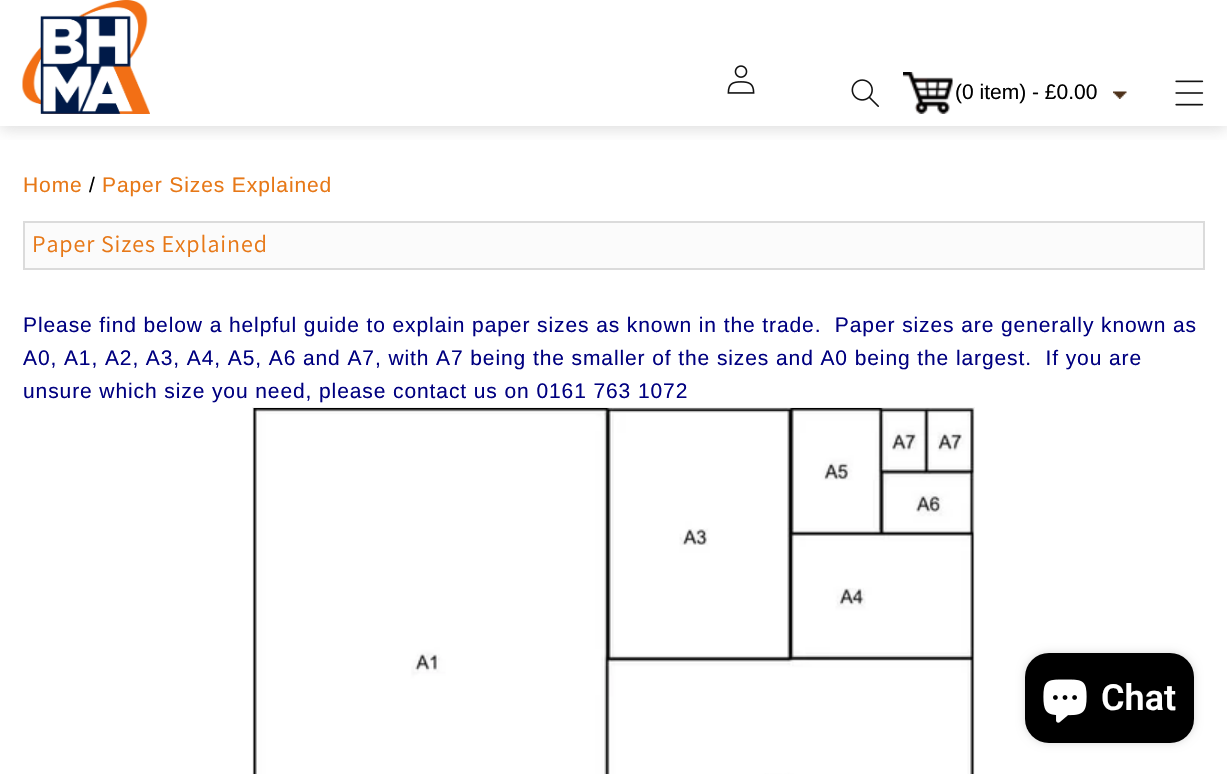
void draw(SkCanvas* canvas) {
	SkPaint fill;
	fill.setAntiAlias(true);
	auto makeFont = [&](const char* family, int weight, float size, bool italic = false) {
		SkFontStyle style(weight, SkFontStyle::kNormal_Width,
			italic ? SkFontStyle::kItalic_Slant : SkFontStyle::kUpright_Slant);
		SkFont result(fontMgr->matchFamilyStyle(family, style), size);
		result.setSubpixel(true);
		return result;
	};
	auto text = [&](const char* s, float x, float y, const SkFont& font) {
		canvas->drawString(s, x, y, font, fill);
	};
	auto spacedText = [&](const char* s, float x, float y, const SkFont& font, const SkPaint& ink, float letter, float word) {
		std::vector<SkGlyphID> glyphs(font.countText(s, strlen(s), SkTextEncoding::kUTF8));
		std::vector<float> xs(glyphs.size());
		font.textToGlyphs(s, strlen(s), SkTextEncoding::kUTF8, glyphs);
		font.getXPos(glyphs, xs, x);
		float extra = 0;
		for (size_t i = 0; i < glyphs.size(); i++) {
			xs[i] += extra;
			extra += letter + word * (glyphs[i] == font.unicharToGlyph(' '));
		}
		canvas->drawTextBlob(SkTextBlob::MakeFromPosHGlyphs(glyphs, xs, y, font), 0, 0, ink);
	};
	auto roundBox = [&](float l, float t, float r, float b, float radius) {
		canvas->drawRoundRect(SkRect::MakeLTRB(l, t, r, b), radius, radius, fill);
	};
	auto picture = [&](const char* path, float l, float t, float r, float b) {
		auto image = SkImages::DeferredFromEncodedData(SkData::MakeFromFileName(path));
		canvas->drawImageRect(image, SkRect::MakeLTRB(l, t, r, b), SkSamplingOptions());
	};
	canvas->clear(0xFFFFFFFF);
	canvas->save();
	canvas->clipRect(SkRect::MakeLTRB(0, 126, 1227, 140));
	fill.setColor(0x47808080);
	fill.setMaskFilter(SkMaskFilter::MakeBlur(kNormal_SkBlurStyle, 7.5f));
	canvas->drawRect(SkRect::MakeLTRB(0, 3, 1227, 129), fill);
	fill.setMaskFilter(nullptr);
	canvas->restore();
	picture("image0.png", 22, 0, 150, 114);
	picture("image1.png", 727, 65, 755, 94);
	picture("image2.png", 851, 79, 879, 107);
	picture("image3.png", 903, 72, 953, 114);
	picture("image4.png", 1113, 91, 1127, 99);
	picture("image5.png", 1175, 80, 1204, 106);
	fill.setColor(0xFFFBFBFB);
	canvas->drawRect(SkRect::MakeLTRB(24, 222, 1204, 269), fill);
	fill.setStyle(SkPaint::kStroke_Style);
	fill.setStrokeWidth(2);
	fill.setColor(0xFFDBDBDB);
	canvas->drawRect(SkRect::MakeLTRB(24, 222, 1204, 269), fill);
	fill.setColor(0xFFF3F3F3);
	canvas->drawRect(SkRect::MakeLTRB(253, 408, 974, 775), fill);
	picture("image6.png", 253, 408, 974, 774);
	fill.setStyle(SkPaint::kFill_Style);
	fill.setColor(0x26000000);
	fill.setMaskFilter(SkMaskFilter::MakeBlur(kNormal_SkBlurStyle, 4));
	canvas->drawRoundRect(SkRect::MakeLTRB(1025, 653, 1194, 743), 24, 24, fill);
	fill.setMaskFilter(nullptr);
	fill.setColor(0xFF000000);
	roundBox(1025, 653, 1194, 743, 24);
	picture("image7.png", 1043, 679, 1087, 723);
	auto font1 = makeFont("Liberation Sans", 400, 21);
	text("(0 item) - £0.00", 955, 99, font1);
	fill.setColor(0xFFE77817);
	spacedText("Home", 23, 192, font1, fill, 0.9f, 0);
	fill.setColor(0xFF000000);
	spacedText("/", 89, 192, font1, fill, 0.9f, 0);
	fill.setColor(0xFFE77817);
	spacedText("Paper Sizes Explained", 102, 192, font1, fill, 0.9f, 0);
	auto font2 = makeFont("Assistant", 400, 24);
	spacedText("Paper Sizes Explained", 32, 252, font2, fill, 0.9f, 0);
	fill.setColor(0xFF000080);
	spacedText("Please find below a helpful guide to explain paper sizes as known in the trade.  Paper sizes are generally known as", 23, 332, font1, fill, 0.9f, 0);
	spacedText("A0, A1, A2, A3, A4, A5, A6 and A7, with A7 being the smaller of the sizes and A0 being the largest.  If you are", 23, 365, font1, fill, 0.9f, 0);
	spacedText("unsure which size you need, please contact us on 0161 763 1072", 23, 398, font1, fill, 0.9f, 0);
	auto font3 = makeFont("Roboto", 600, 36);
	fill.setColor(0xFFFFFFFF);
	text("Chat", 1101, 710, font3);
}
